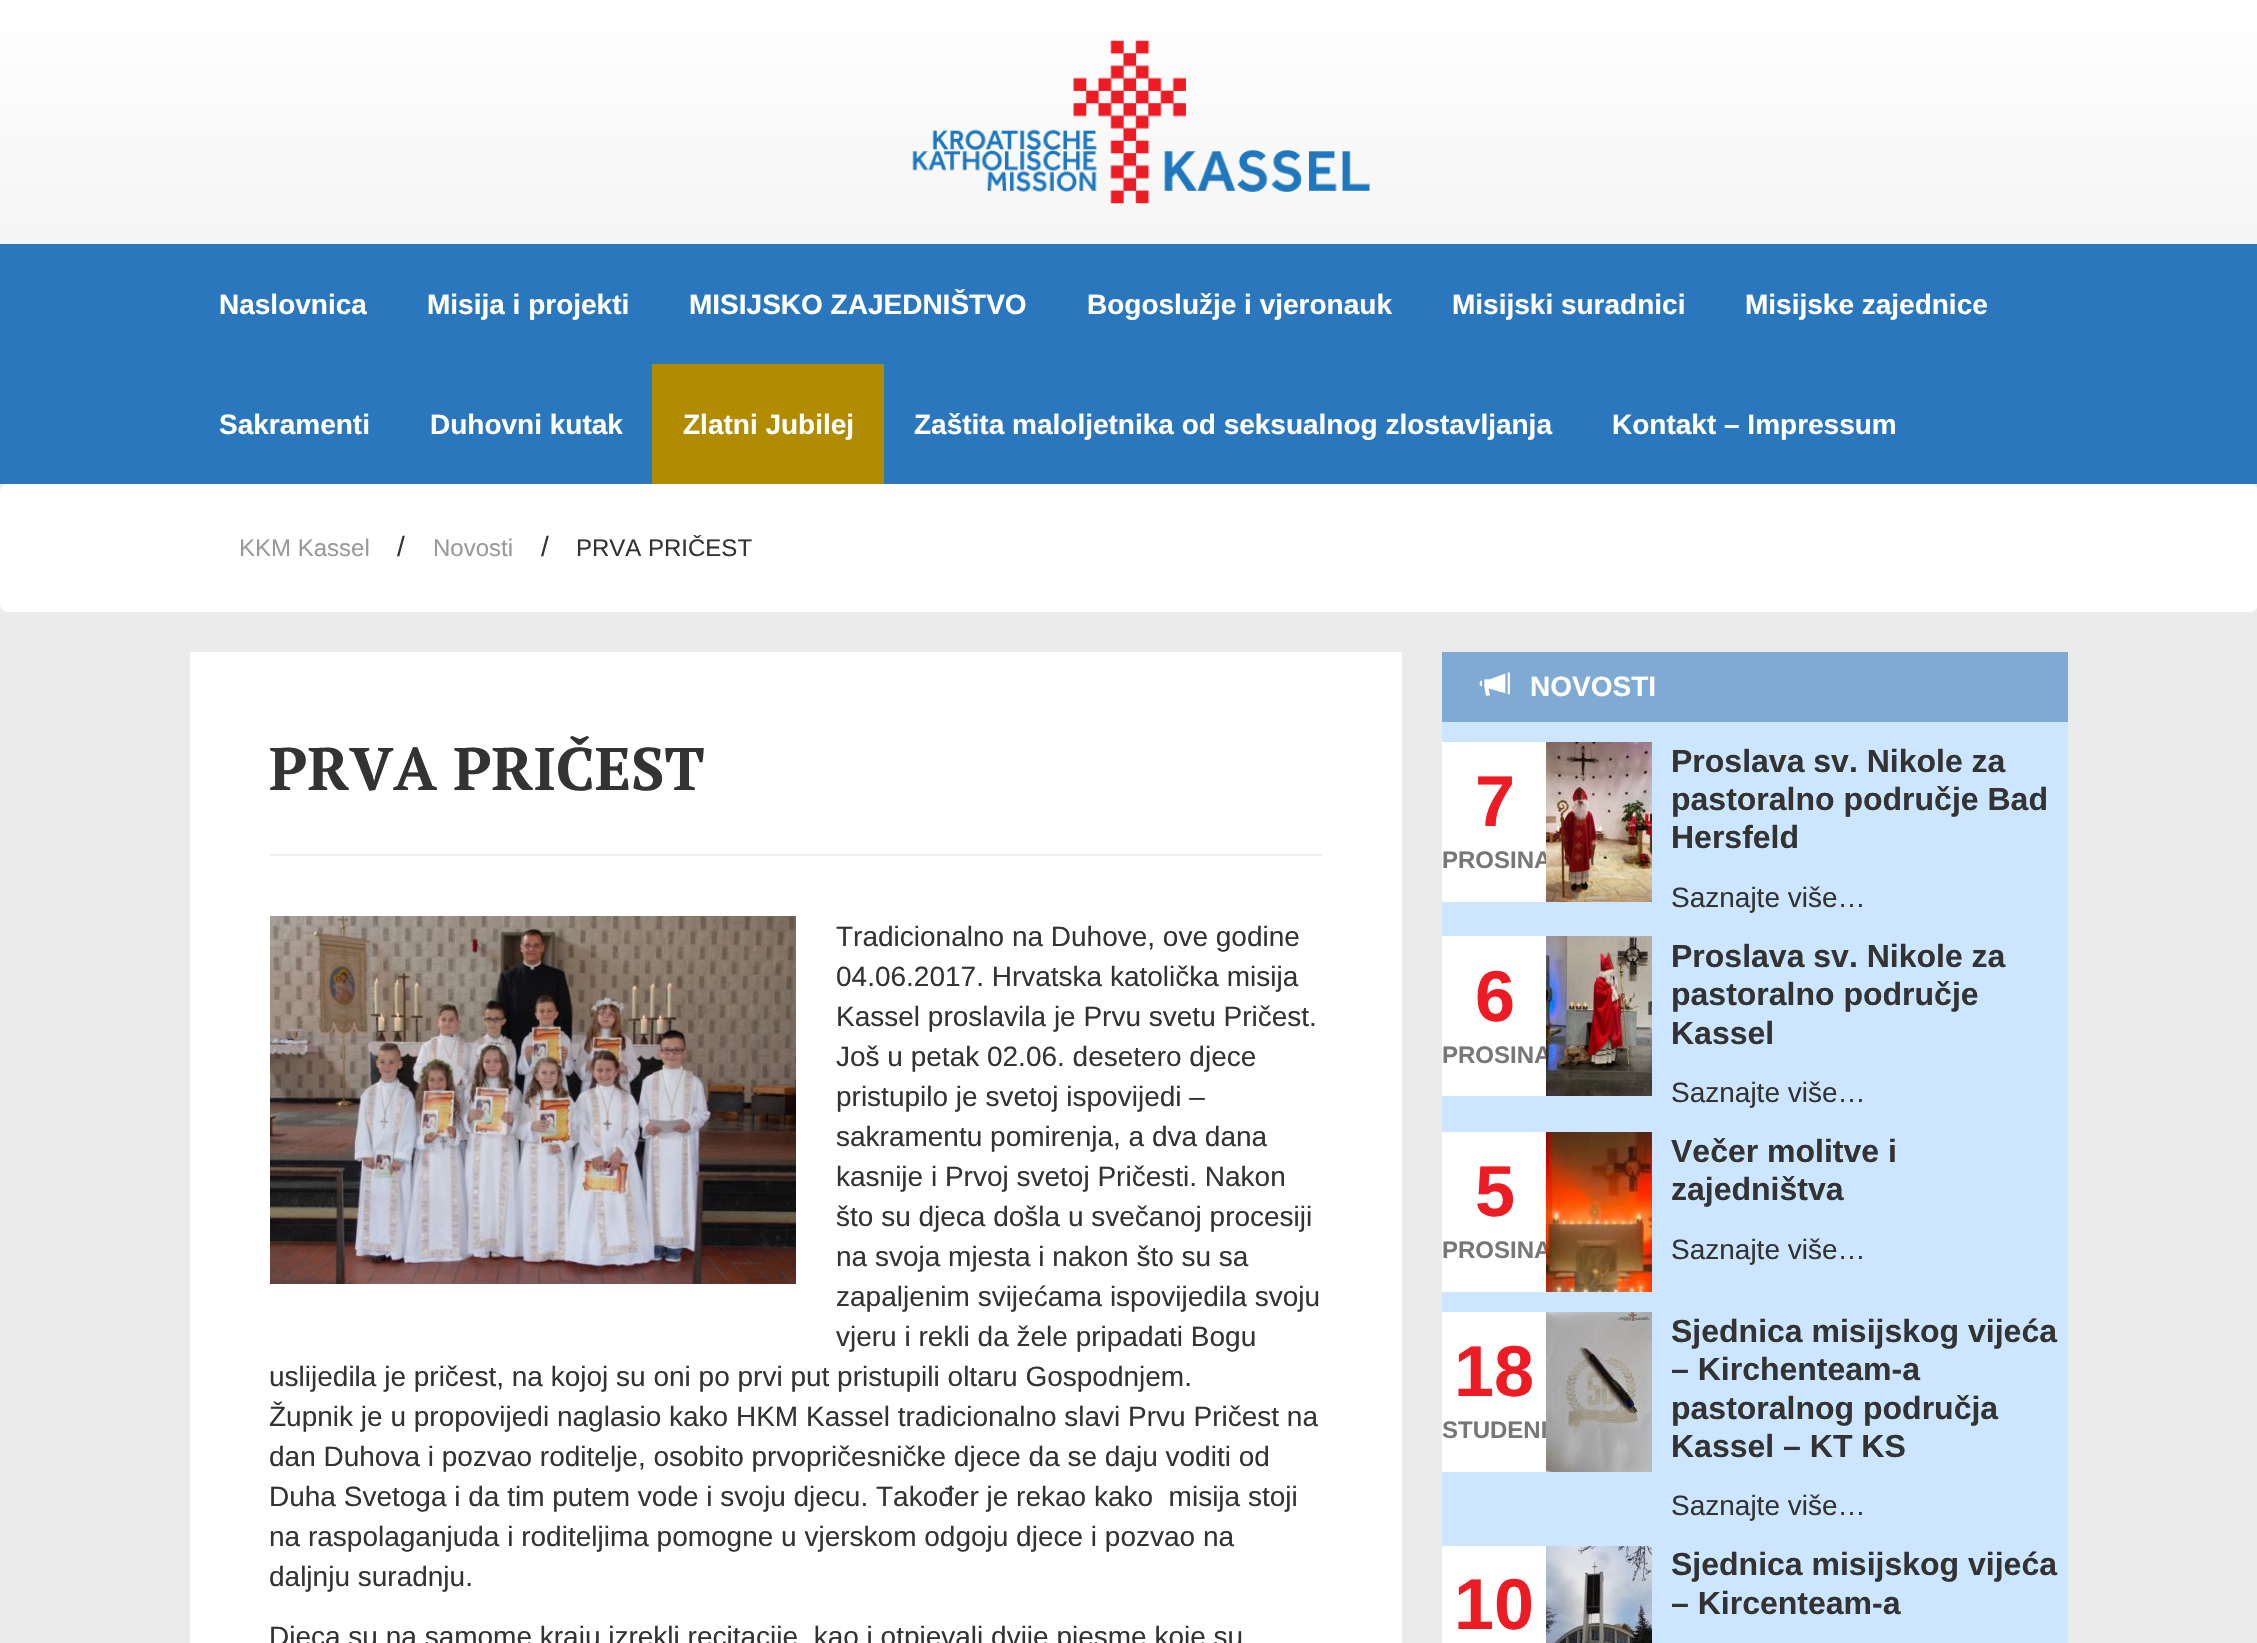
void draw(SkCanvas* canvas) {
	SkPaint fill;
	fill.setAntiAlias(true);
	auto makeFont = [&](const char* family, int weight, float size, bool italic = false) {
		SkFontStyle style(weight, SkFontStyle::kNormal_Width,
			italic ? SkFontStyle::kItalic_Slant : SkFontStyle::kUpright_Slant);
		SkFont result(fontMgr->matchFamilyStyle(family, style), size);
		result.setSubpixel(true);
		return result;
	};
	auto text = [&](const char* s, float x, float y, const SkFont& font) {
		canvas->drawString(s, x, y, font, fill);
	};
	auto box = [&](float l, float t, float r, float b) {
		canvas->drawRect(SkRect::MakeLTRB(l, t, r, b), fill);
	};
	auto roundBox = [&](float l, float t, float r, float b, float radius) {
		canvas->drawRoundRect(SkRect::MakeLTRB(l, t, r, b), radius, radius, fill);
	};
	auto picture = [&](const char* path, float l, float t, float r, float b) {
		auto image = SkImages::DeferredFromEncodedData(SkData::MakeFromFileName(path));
		canvas->drawImageRect(image, SkRect::MakeLTRB(l, t, r, b), SkSamplingOptions());
	};
	canvas->clear(0xFFEBEBEB);
	{
		const SkColor colors[] = {0xFFFFFFFF, 0xFFEBEBEB};
		const float stops[] = {0, 1};
		const SkPoint ends[] = {{1129, 0}, {1129, 484}};
		fill.setShader(SkGradientShader::MakeLinear(ends, colors, stops, 2, SkTileMode::kClamp));
		fill.setAlpha(255);
	}
	box(0, 0, 2257, 244);
	picture("image0.png", 912, 40, 1370, 204);
	fill.setShader(nullptr);
	fill.setColor(0xFF2B77BD);
	box(0, 244, 2257, 484);
	fill.setColor(0xFFB18B00);
	box(652, 364, 884, 484);
	fill.setColor(0xFFFFFFFF);
	roundBox(0, 484, 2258, 612, 8);
	box(190, 652, 1402, 1643);
	fill.setColor(0xFFEEEEEE);
	box(270, 854, 1322, 856);
	picture("image1.png", 270, 916, 796, 1284);
	fill.setColor(0xFF7FAAD4);
	box(1442, 652, 2068, 722);
	picture("image2.png", 1479, 672, 1510, 696);
	fill.setColor(0xFFCCE6FF);
	box(1442, 722, 2068, 1643);
	fill.setColor(0xFFFFFFFF);
	box(1442, 742, 1546, 902);
	box(1442, 936, 1546, 1096);
	box(1442, 1132, 1546, 1292);
	box(1442, 1312, 1546, 1472);
	box(1442, 1546, 1546, 1643);
	picture("image7.png", 1546, 1546, 1652, 1643);
	auto font1 = makeFont("Liberation Sans", 700, 28);
	text("Naslovnica", 219, 314, font1);
	text("Misija i projekti", 427, 314, font1);
	text("MISIJSKO ZAJEDNIŠTVO", 689, 314, font1);
	text("Bogoslužje i vjeronauk", 1087, 314, font1);
	text("Misijski suradnici", 1452, 314, font1);
	text("Misijske zajednice", 1745, 314, font1);
	text("Sakramenti", 219, 434, font1);
	text("Duhovni kutak", 430, 434, font1);
	text("Zlatni Jubilej", 683, 434, font1);
	text("Zaštita maloljetnika od seksualnog zlostavljanja", 914, 434, font1);
	text("Kontakt – Impressum", 1612, 434, font1);
	auto font2 = makeFont("Liberation Sans", 400, 24);
	fill.setColor(0xFF999999);
	text("KKM Kassel", 239, 556, font2);
	auto font3 = makeFont("Liberation Sans", 400, 28);
	fill.setColor(0xFF333333);
	text("/", 397, 556, font3);
	fill.setColor(0xFF999999);
	text("Novosti", 433, 556, font2);
	fill.setColor(0xFF333333);
	text("/", 541, 556, font3);
	text("PRVA PRIČEST", 576, 556, font2);
	auto font4 = makeFont("PT Serif", 700, 60);
	text("PRVA PRIČEST", 269, 790, font4);
	text("Tradicionalno na Duhove, ove godine", 836, 946, font3);
	text("04.06.2017. Hrvatska katolička misija", 836, 986, font3);
	text("Kassel proslavila je Prvu svetu Pričest.", 836, 1026, font3);
	text("Još u petak 02.06. desetero djece", 836, 1066, font3);
	text("pristupilo je svetoj ispovijedi –", 836, 1106, font3);
	text("sakramentu pomirenja, a dva dana", 836, 1146, font3);
	text("kasnije i Prvoj svetoj Pričesti. Nakon", 836, 1186, font3);
	text("što su djeca došla u svečanoj procesiji", 836, 1226, font3);
	text("na svoja mjesta i nakon što su sa", 836, 1266, font3);
	text("zapaljenim svijećama ispovijedila svoju", 836, 1306, font3);
	text("vjeru i rekli da žele pripadati Bogu", 836, 1346, font3);
	text("uslijedila je pričest, na kojoj su oni po prvi put pristupili oltaru Gospodnjem.", 269, 1386, font3);
	text("Župnik je u propovijedi naglasio kako HKM Kassel tradicionalno slavi Prvu Pričest na", 269, 1426, font3);
	text("dan Duhova i pozvao roditelje, osobito prvopričesničke djece da se daju voditi od", 269, 1466, font3);
	text("Duha Svetoga i da tim putem vode i svoju djecu. Također je rekao kako  misija stoji", 269, 1506, font3);
	text("na raspolaganjuda i roditeljima pomogne u vjerskom odgoju djece i pozvao na", 269, 1546, font3);
	text("daljnju suradnju.", 269, 1586, font3);
	text("Djeca su na samome kraju izrekli recitacije, kao i otpjevali dvije pjesme koje su", 269, 1646, font3);
	fill.setColor(0xFFFFFFFF);
	text("NOVOSTI", 1530, 696, font1);
	auto font5 = makeFont("Liberation Sans", 700, 72);
	fill.setColor(0xFFED1C24);
	text("7", 1475, 826, font5);
	auto font6 = makeFont("Liberation Sans", 700, 24);
	fill.setColor(0xFF777777);
	text("PROSINA", 1442, 868, font6);
	picture("image3.png", 1546, 742, 1652, 902);
	auto font7 = makeFont("Liberation Sans", 700, 32);
	fill.setColor(0xFF333333);
	text("Proslava sv. Nikole za", 1671, 772, font7);
	text("pastoralno područje Bad", 1671, 810, font7);
	text("Hersfeld", 1671, 848, font7);
	text("Saznajte više…", 1671, 907, font3);
	fill.setColor(0xFFED1C24);
	text("6", 1475, 1021, font5);
	fill.setColor(0xFF777777);
	text("PROSINA", 1442, 1063, font6);
	picture("image4.png", 1546, 936, 1652, 1096);
	fill.setColor(0xFF333333);
	text("Proslava sv. Nikole za", 1671, 967, font7);
	text("pastoralno područje", 1671, 1005, font7);
	text("Kassel", 1671, 1044, font7);
	text("Saznajte više…", 1671, 1102, font3);
	fill.setColor(0xFFED1C24);
	text("5", 1475, 1216, font5);
	fill.setColor(0xFF777777);
	text("PROSINA", 1442, 1258, font6);
	picture("image5.png", 1546, 1132, 1652, 1292);
	fill.setColor(0xFF333333);
	text("Večer molitve i", 1671, 1162, font7);
	text("zajedništva", 1671, 1200, font7);
	text("Saznajte više…", 1671, 1259, font3);
	fill.setColor(0xFFED1C24);
	text("18", 1454, 1396, font5);
	fill.setColor(0xFF777777);
	text("STUDENI", 1442, 1438, font6);
	picture("image6.png", 1546, 1312, 1652, 1472);
	fill.setColor(0xFF333333);
	text("Sjednica misijskog vijeća", 1671, 1342, font7);
	text("– Kirchenteam-a", 1671, 1380, font7);
	text("pastoralnog područja", 1671, 1419, font7);
	text("Kassel – KT KS", 1671, 1457, font7);
	text("Saznajte više…", 1671, 1515, font3);
	fill.setColor(0xFFED1C24);
	text("10", 1454, 1629, font5);
	fill.setColor(0xFF333333);
	text("Sjednica misijskog vijeća", 1671, 1575, font7);
	text("– Kircenteam-a", 1671, 1614, font7);
}
